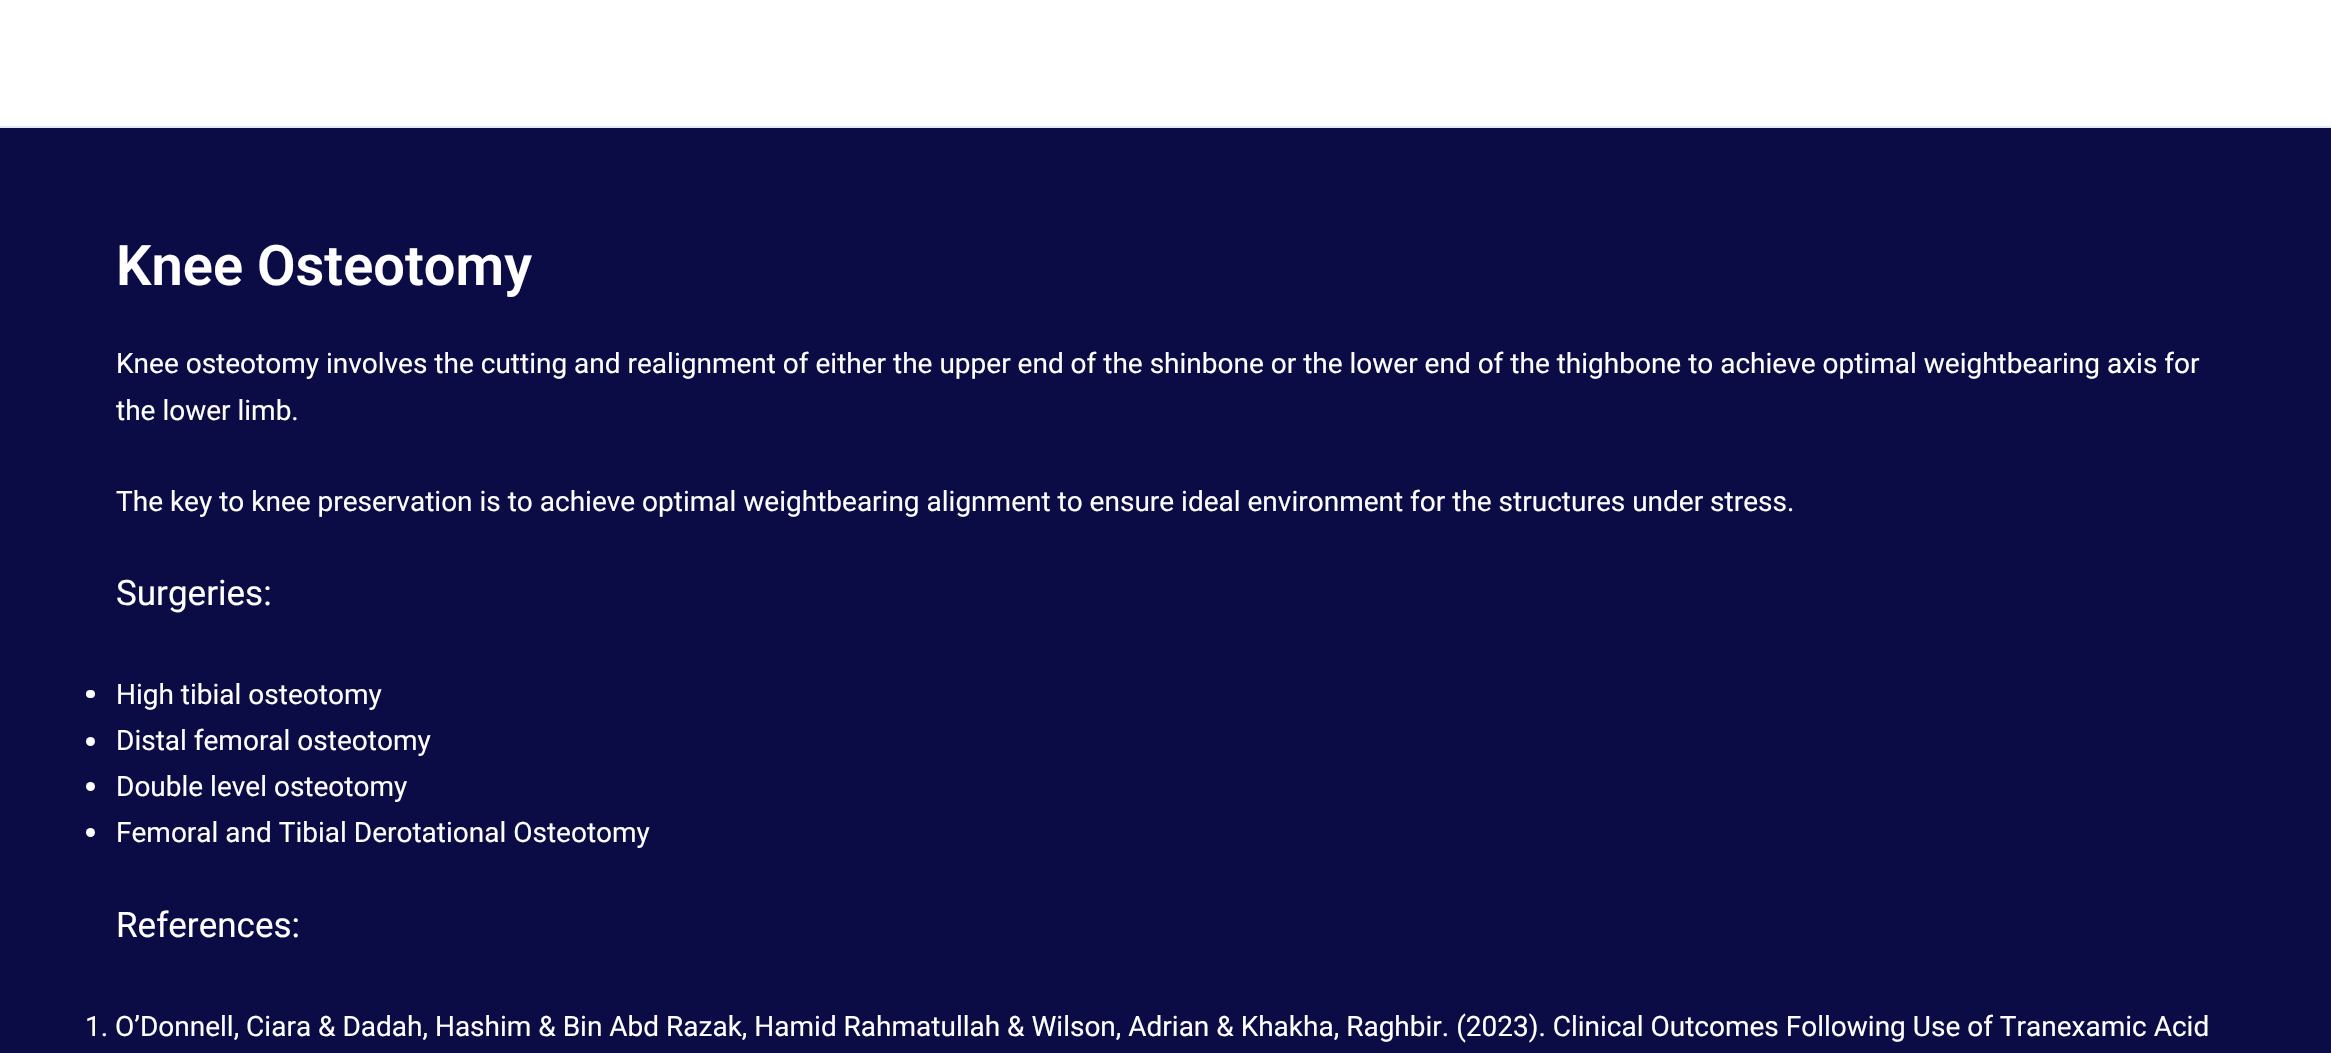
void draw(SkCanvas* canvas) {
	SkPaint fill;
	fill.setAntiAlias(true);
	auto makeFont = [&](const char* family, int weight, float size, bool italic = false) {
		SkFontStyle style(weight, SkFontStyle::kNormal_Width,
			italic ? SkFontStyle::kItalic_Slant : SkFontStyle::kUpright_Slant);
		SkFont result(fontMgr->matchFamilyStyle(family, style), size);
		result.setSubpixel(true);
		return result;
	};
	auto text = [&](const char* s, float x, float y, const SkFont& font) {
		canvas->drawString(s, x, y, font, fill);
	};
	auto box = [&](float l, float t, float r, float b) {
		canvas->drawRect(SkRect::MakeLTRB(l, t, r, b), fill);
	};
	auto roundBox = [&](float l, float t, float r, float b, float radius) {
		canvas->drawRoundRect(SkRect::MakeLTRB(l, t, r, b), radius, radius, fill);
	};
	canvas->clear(0xFF0B0B45);
	fill.setColor(0xFFFFFFFF);
	box(0, 0, 2331, 126);
	fill.setColor(0xFFE2E8F0);
	box(0, 126, 2331, 128);
	fill.setColor(0xFFFFFFFF);
	roundBox(86, 690, 95, 698, 4);
	canvas->drawCircle(90.5f, 741.5f, 4.5f, fill);
	canvas->drawCircle(90.5f, 786.5f, 4.5f, fill);
	canvas->drawCircle(90.5f, 832.5f, 4.5f, fill);
	auto font1 = makeFont("Roboto", 600, 56);
	text("Knee Osteotomy", 116, 285, font1);
	auto font2 = makeFont("Roboto", 400, 28);
	text("Knee osteotomy involves the cutting and realignment of either the upper end of the shinbone or the lower end of the thighbone to achieve optimal weightbearing axis for", 116, 373, font2);
	text("the lower limb.", 116, 420, font2);
	text("The key to knee preservation is to achieve optimal weightbearing alignment to ensure ideal environment for the structures under stress.", 116, 511, font2);
	auto font3 = makeFont("Roboto", 400, 35);
	text("Surgeries:", 116, 605, font3);
	text("High tibial osteotomy", 116, 704, font2);
	text("Distal femoral osteotomy", 116, 750, font2);
	text("Double level osteotomy", 116, 796, font2);
	text("Femoral and Tibial Derotational Osteotomy", 116, 842, font2);
	text("References:", 116, 937, font3);
	text("1. O’Donnell, Ciara & Dadah, Hashim & Bin Abd Razak, Hamid Rahmatullah & Wilson, Adrian & Khakha, Raghbir. (2023). Clinical Outcomes Following Use of Tranexamic Acid", 85, 1036, font2);
}
